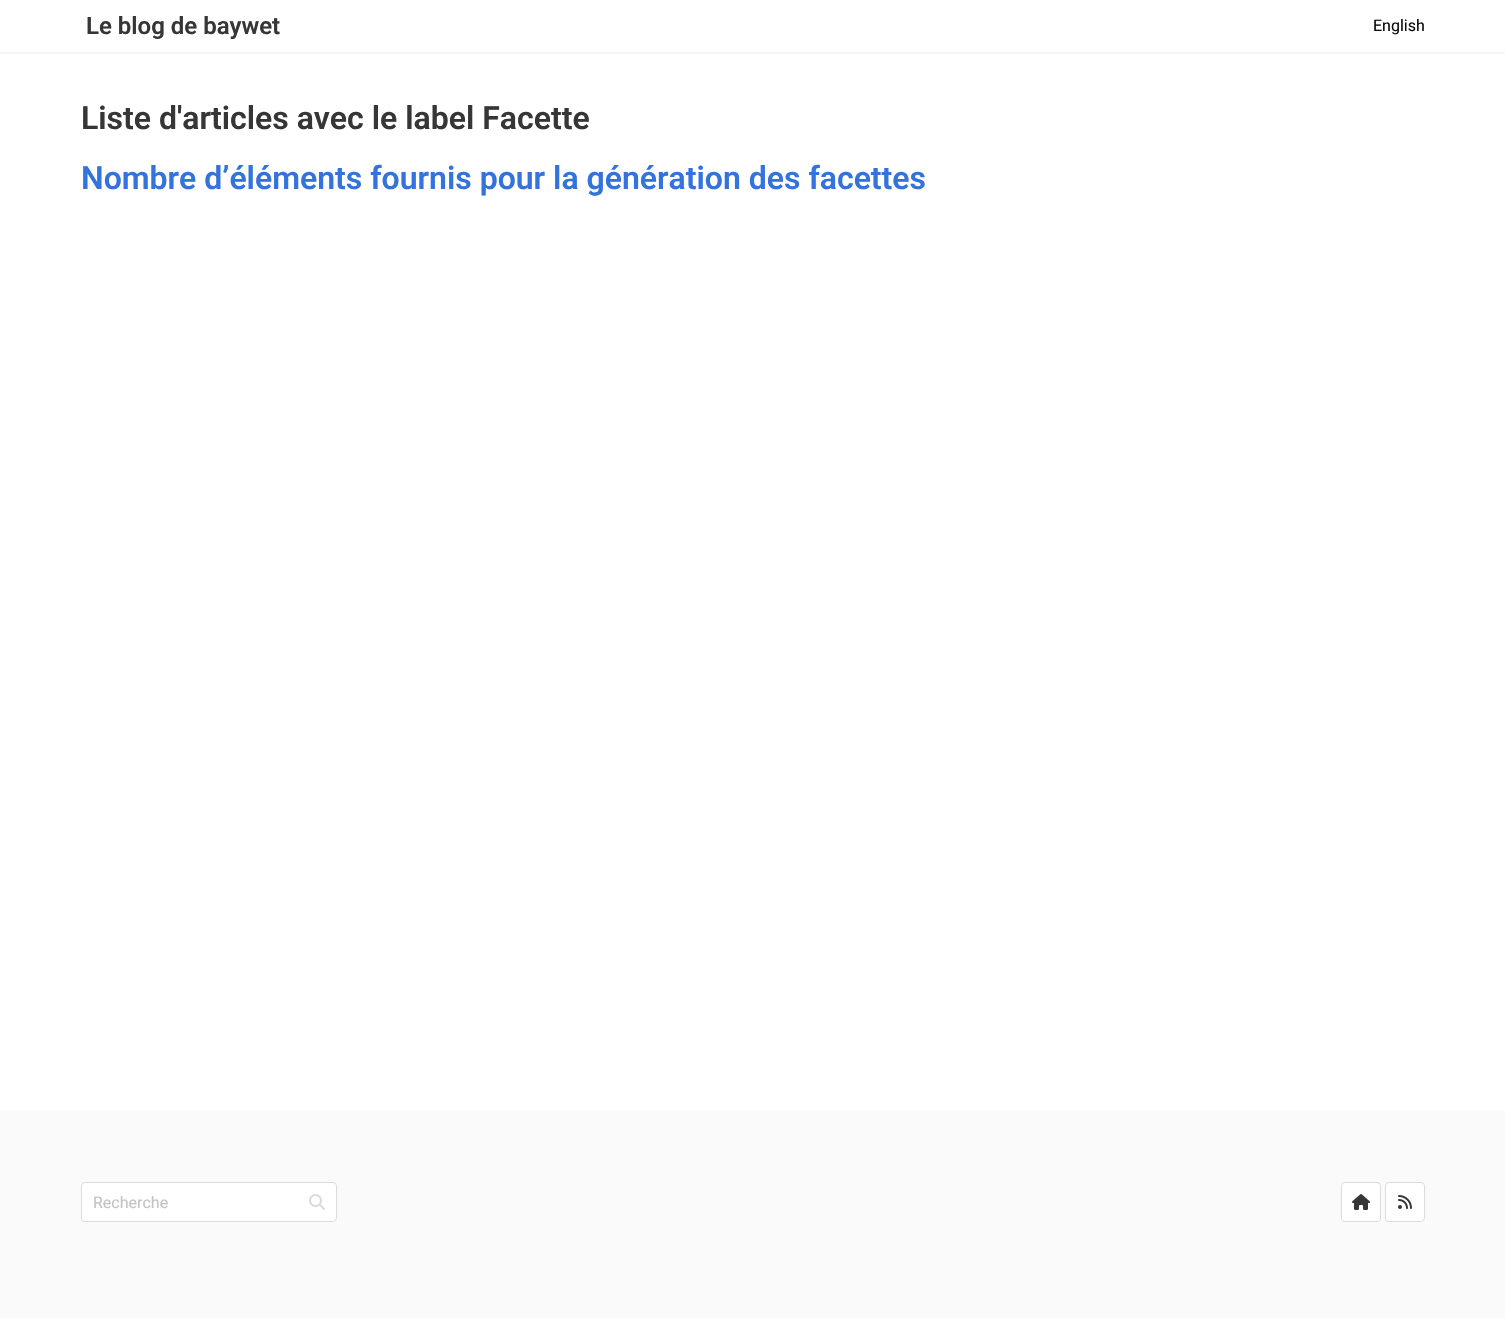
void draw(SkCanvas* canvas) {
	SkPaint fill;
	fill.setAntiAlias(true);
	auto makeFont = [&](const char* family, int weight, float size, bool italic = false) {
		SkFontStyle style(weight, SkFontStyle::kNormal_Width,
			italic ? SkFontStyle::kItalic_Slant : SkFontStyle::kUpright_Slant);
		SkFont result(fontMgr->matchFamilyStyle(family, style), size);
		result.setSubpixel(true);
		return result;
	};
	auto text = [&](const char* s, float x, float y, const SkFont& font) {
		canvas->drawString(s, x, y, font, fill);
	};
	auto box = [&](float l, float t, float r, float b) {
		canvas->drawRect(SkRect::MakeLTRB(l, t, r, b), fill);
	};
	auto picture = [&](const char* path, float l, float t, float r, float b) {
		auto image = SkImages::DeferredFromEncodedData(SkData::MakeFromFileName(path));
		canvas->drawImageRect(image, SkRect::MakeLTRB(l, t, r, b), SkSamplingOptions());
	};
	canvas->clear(0xFFFFFFFF);
	fill.setColor(0xFFF5F5F5);
	box(0, 52, 1505, 54);
	fill.setColor(0xFFFAFAFA);
	box(0, 1110, 1505, 1318);
	fill.setColor(0xFFFFFFFF);
	canvas->drawRoundRect(SkRect::MakeLTRB(81.5f, 1182.5f, 336.5f, 1221.5f), 3.5f, 3.5f, fill);
	fill.setStyle(SkPaint::kStroke_Style);
	fill.setStrokeWidth(1);
	fill.setColor(0xFFDBDBDB);
	canvas->drawRoundRect(SkRect::MakeLTRB(81.5f, 1182.5f, 336.5f, 1221.5f), 3.5f, 3.5f, fill);
	picture("image0.png", 309, 1194, 325, 1210);
	fill.setStyle(SkPaint::kFill_Style);
	fill.setColor(0xFFFFFFFF);
	canvas->drawRoundRect(SkRect::MakeLTRB(1341.5f, 1182.5f, 1380.5f, 1221.5f), 3.5f, 3.5f, fill);
	fill.setStyle(SkPaint::kStroke_Style);
	fill.setColor(0xFFDBDBDB);
	canvas->drawRoundRect(SkRect::MakeLTRB(1341.5f, 1182.5f, 1380.5f, 1221.5f), 3.5f, 3.5f, fill);
	picture("image1.png", 1352, 1194, 1370, 1210);
	fill.setStyle(SkPaint::kFill_Style);
	fill.setColor(0xFFFFFFFF);
	canvas->drawRoundRect(SkRect::MakeLTRB(1385.5f, 1182.5f, 1424.5f, 1221.5f), 3.5f, 3.5f, fill);
	fill.setStyle(SkPaint::kStroke_Style);
	fill.setColor(0xFFDBDBDB);
	canvas->drawRoundRect(SkRect::MakeLTRB(1385.5f, 1182.5f, 1424.5f, 1221.5f), 3.5f, 3.5f, fill);
	picture("image2.png", 1398, 1195, 1412, 1209);
	auto font1 = makeFont("Roboto", 600, 24);
	fill.setStyle(SkPaint::kFill_Style);
	fill.setColor(0xFF363636);
	text("Le blog de baywet", 86, 34, font1);
	auto font2 = makeFont("Roboto", 400, 16);
	fill.setColor(0xFF0A0A0A);
	text("English", 1373, 31, font2);
	auto font3 = makeFont("Roboto", 600, 32);
	fill.setColor(0xFF363636);
	text("Liste d'articles avec le label Facette", 81, 129, font3);
	fill.setColor(0xFF3273DC);
	text("Nombre d’éléments fournis pour la génération des facettes", 81, 189, font3);
	fill.setColor(0xFFC3C3C3);
	text("Recherche", 93, 1208, font2);
}
